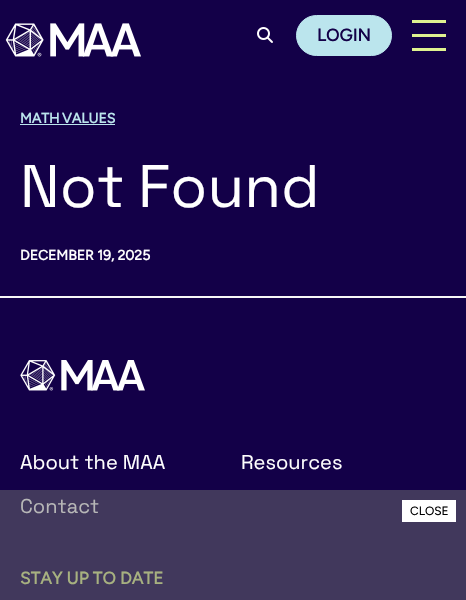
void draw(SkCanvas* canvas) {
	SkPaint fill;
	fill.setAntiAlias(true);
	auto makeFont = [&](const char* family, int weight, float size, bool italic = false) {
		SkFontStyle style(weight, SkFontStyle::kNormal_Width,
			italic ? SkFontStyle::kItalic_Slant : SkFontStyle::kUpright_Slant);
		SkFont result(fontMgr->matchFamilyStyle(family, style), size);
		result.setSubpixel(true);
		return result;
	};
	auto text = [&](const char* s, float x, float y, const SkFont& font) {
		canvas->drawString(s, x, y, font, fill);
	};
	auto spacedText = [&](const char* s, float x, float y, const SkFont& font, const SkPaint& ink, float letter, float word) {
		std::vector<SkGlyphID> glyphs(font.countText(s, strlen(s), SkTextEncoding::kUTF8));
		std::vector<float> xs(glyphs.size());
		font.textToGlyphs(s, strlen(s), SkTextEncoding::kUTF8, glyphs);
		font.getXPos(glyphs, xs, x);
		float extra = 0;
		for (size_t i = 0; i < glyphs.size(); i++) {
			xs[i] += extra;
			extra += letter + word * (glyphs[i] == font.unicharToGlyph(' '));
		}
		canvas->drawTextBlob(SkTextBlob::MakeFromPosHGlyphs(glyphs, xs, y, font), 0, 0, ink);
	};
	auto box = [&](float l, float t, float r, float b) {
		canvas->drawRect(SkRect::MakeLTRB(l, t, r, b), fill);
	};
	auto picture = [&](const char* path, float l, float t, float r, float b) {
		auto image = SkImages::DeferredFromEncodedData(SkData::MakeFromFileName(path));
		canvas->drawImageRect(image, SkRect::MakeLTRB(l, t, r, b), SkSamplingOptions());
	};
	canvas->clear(0xFF130048);
	picture("image0.png", 5, 23, 141, 57);
	picture("image1.png", 257, 27, 273, 43);
	fill.setColor(0xFFBBE5ED);
	canvas->drawRoundRect(SkRect::MakeLTRB(296.5f, 15.5f, 391.5f, 55.5f), 20, 20, fill);
	fill.setStyle(SkPaint::kStroke_Style);
	fill.setStrokeWidth(1);
	canvas->drawRoundRect(SkRect::MakeLTRB(296.5f, 15.5f, 391.5f, 55.5f), 20, 20, fill);
	fill.setStyle(SkPaint::kFill_Style);
	fill.setColor(0xFFDFF290);
	box(412, 20, 446, 23);
	box(412, 34, 446, 37);
	box(412, 48, 446, 51);
	fill.setColor(0xFFF7F7F7);
	box(0, 296, 466, 298);
	fill.setColor(0xFFBBE5ED);
	box(20, 124, 115, 125);
	fill.setColor(0xFF41385C);
	box(0, 490, 466, 600);
	picture("image2.png", 20, 360, 145, 391);
	fill.setColor(0xFFFFFFFF);
	box(402, 500, 456, 522);
	auto font1 = makeFont("Figtree", 700, 17);
	fill.setColor(0xFF130048);
	spacedText("LOGIN", 317, 41, font1, fill, 0.25f, 0);
	auto font2 = makeFont("Figtree", 700, 14);
	fill.setColor(0xFFBBE5ED);
	spacedText("MATH VALUES", 20, 123, font2, fill, 0, -1);
	auto font3 = makeFont("Space Grotesk", 400, 60);
	fill.setColor(0xFFFFFFFF);
	spacedText("Not Found", 20, 207, font3, fill, 0, -2);
	text("DECEMBER 19, 2025", 20, 260, font2);
	auto font4 = makeFont("Space Grotesk", 400, 20);
	text("About the MAA", 20, 469, font4);
	text("Resources", 241, 469, font4);
	fill.setColor(0xFFB7B7B7);
	text("Contact", 20, 513, font4);
	fill.setColor(0xFFA7B180);
	spacedText("STAY UP TO DATE", 20, 584, font1, fill, 0.25f, -0.5f);
	auto font5 = makeFont("Figtree", 300, 12);
	fill.setColor(0xFF000000);
	text("CLOSE", 410, 515, font5);
}
